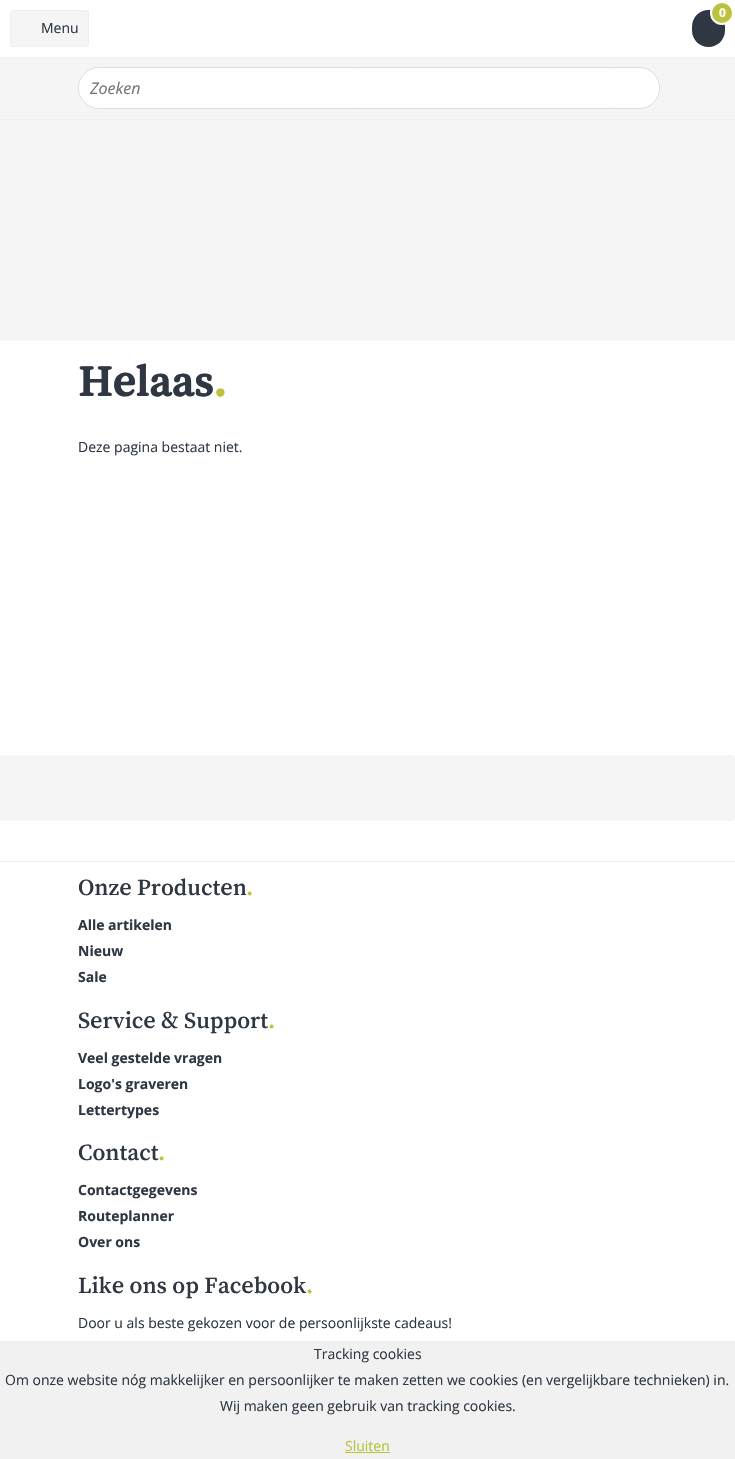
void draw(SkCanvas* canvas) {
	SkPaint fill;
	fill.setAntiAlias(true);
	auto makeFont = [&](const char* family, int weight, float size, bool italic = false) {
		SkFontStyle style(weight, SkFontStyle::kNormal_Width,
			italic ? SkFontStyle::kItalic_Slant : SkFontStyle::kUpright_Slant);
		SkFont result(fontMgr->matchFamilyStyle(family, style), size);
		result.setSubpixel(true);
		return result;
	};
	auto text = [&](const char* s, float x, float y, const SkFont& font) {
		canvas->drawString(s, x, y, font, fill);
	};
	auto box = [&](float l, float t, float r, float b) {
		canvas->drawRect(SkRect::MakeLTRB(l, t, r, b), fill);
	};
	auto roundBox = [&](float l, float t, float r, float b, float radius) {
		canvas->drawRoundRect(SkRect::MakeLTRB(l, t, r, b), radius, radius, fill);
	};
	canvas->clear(0xFFFFFFFF);
	fill.setColor(0xFFF1F1F1);
	box(0, 1341, 735, 1459);
	fill.setColor(0xFFEEEEEE);
	box(0, 57, 735, 58);
	fill.setColor(0xFF2E3742);
	roundBox(692, 10, 725, 47, 16.5f);
	fill.setColor(0xFFBBC33E);
	canvas->drawCircle(722, 13, 11, fill);
	fill.setStyle(SkPaint::kStroke_Style);
	fill.setStrokeWidth(2);
	fill.setColor(0xFFFFFFFF);
	canvas->drawCircle(722, 13, 11, fill);
	fill.setStyle(SkPaint::kFill_Style);
	fill.setColor(0xFFF5F5F5);
	canvas->drawRoundRect(SkRect::MakeLTRB(10.5f, 10.5f, 88.5f, 46.5f), 2.5f, 2.5f, fill);
	fill.setStyle(SkPaint::kStroke_Style);
	fill.setStrokeWidth(1);
	fill.setColor(0xFFEEEEEE);
	canvas->drawRoundRect(SkRect::MakeLTRB(10.5f, 10.5f, 88.5f, 46.5f), 2.5f, 2.5f, fill);
	fill.setStyle(SkPaint::kFill_Style);
	fill.setColor(0xFFF5F5F5);
	box(0, 58, 735, 119);
	fill.setColor(0xFFEEEEEE);
	box(0, 119, 735, 120);
	fill.setStyle(SkPaint::kStroke_Style);
	fill.setColor(0xFFDDDDDD);
	canvas->drawRoundRect(SkRect::MakeLTRB(78.5f, 67.5f, 659.5f, 108.5f), 20.5f, 20.5f, fill);
	fill.setStyle(SkPaint::kFill_Style);
	fill.setColor(0xFFFFFFFF);
	canvas->drawPath(SkPathBuilder().moveTo(99, 68.5f).lineTo(614.5f, 68.5f).lineTo(614.5f, 107.5f).lineTo(99, 107.5f).cubicTo(88, 107.5f, 79.5f, 99, 79.5f, 88).cubicTo(79.5f, 77, 88, 68.5f, 99, 68.5f).close().detach(), fill);
	fill.setStyle(SkPaint::kStroke_Style);
	canvas->drawPath(SkPathBuilder().moveTo(99, 68.5f).lineTo(614.5f, 68.5f).lineTo(614.5f, 107.5f).lineTo(99, 107.5f).cubicTo(88, 107.5f, 79.5f, 99, 79.5f, 88).cubicTo(79.5f, 77, 88, 68.5f, 99, 68.5f).close().detach(), fill);
	fill.setStyle(SkPaint::kFill_Style);
	canvas->drawPath(SkPathBuilder().moveTo(615, 68).lineTo(639, 68).cubicTo(650, 68, 659, 77, 659, 88).cubicTo(659, 99, 650, 108, 639, 108).lineTo(615, 108).close().detach(), fill);
	fill.setColor(0xFFF5F5F5);
	box(0, 120, 735, 341);
	roundBox(0, 755, 735, 821, 3);
	fill.setColor(0xFFEEEEEE);
	box(0, 861, 735, 862);
	fill.setColor(0xFFBBC33E);
	box(345, 1452, 390, 1453);
	auto font1 = makeFont("Open Sans", 700, 12);
	fill.setColor(0xFFFFFFFF);
	text("0", 719, 17, font1);
	auto font2 = makeFont("Open Sans", 400, 14);
	fill.setColor(0xFF2E3742);
	text("Menu", 41, 33, font2);
	auto font3 = makeFont("Open Sans", 400, 16, true);
	fill.setColor(0xFF757575);
	text("Zoeken", 90, 94, font3);
	auto font4 = makeFont("Song Myung", 700, 45);
	fill.setColor(0xFF2E3742);
	text("Helaas", 78, 396, font4);
	fill.setColor(0xFFBBC33E);
	text(".", 213, 396, font4);
	fill.setColor(0xFF2E3742);
	text("Deze pagina bestaat niet.", 78, 452, font2);
	auto font5 = makeFont("Song Myung", 400, 24);
	text("Onze Producten", 78, 895, font5);
	fill.setColor(0xFFBBC33E);
	text(".", 246, 895, font5);
	auto font6 = makeFont("Open Sans", 700, 14);
	fill.setColor(0xFF2E3742);
	text("Alle artikelen", 78, 930, font6);
	text("Nieuw", 78, 956, font6);
	text("Sale", 78, 982, font6);
	text("Service & Support", 78, 1028, font5);
	fill.setColor(0xFFBBC33E);
	text(".", 268, 1028, font5);
	fill.setColor(0xFF2E3742);
	text("Veel gestelde vragen", 78, 1063, font6);
	text("Logo's graveren", 78, 1089, font6);
	text("Lettertypes", 78, 1115, font6);
	text("Contact", 78, 1160, font5);
	fill.setColor(0xFFBBC33E);
	text(".", 158, 1160, font5);
	fill.setColor(0xFF2E3742);
	text("Contactgegevens", 78, 1195, font6);
	text("Routeplanner", 78, 1221, font6);
	text("Over ons", 78, 1247, font6);
	text("Like ons op Facebook", 78, 1293, font5);
	fill.setColor(0xFFBBC33E);
	text(".", 306, 1293, font5);
	fill.setColor(0xFF2E3742);
	text("Door u als beste gekozen voor de persoonlijkste cadeaus!", 78, 1328, font2);
	text("Tracking cookies", 314, 1359, font2);
	text("Om onze website nóg makkelijker en persoonlijker te maken zetten we cookies (en vergelijkbare technieken) in.", 5, 1385, font2);
	text("Wij maken geen gebruik van tracking cookies.", 220, 1411, font2);
	fill.setColor(0xFFBBC33E);
	text("Sluiten", 345, 1451, font2);
}
